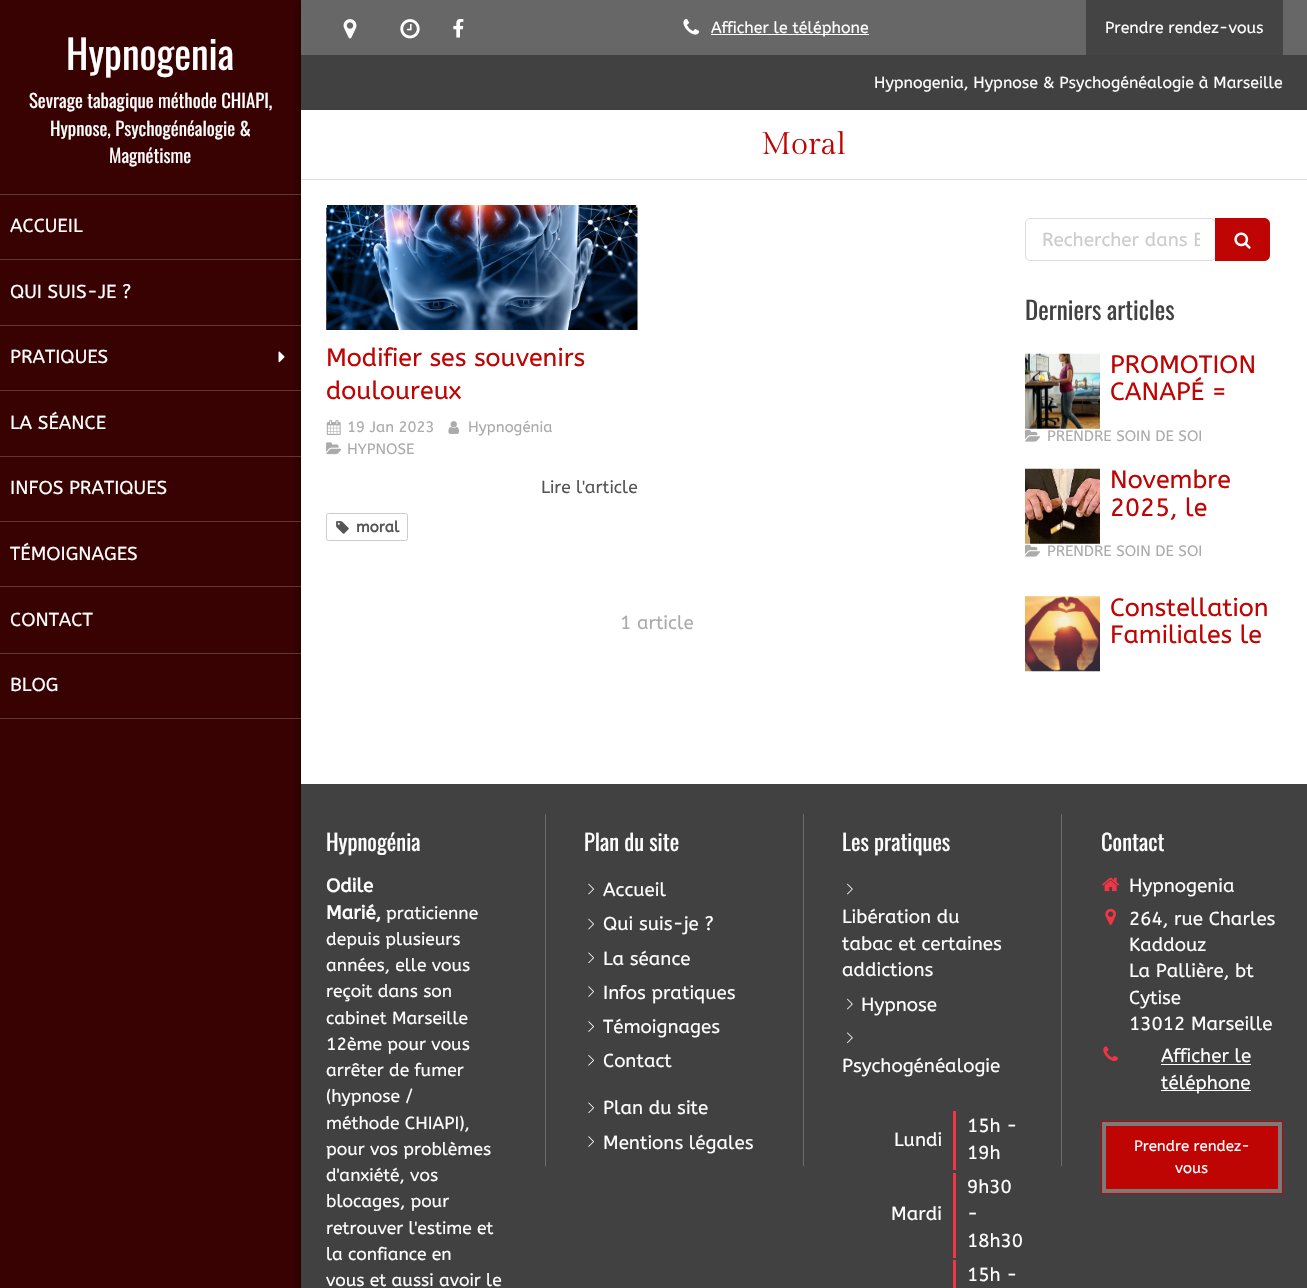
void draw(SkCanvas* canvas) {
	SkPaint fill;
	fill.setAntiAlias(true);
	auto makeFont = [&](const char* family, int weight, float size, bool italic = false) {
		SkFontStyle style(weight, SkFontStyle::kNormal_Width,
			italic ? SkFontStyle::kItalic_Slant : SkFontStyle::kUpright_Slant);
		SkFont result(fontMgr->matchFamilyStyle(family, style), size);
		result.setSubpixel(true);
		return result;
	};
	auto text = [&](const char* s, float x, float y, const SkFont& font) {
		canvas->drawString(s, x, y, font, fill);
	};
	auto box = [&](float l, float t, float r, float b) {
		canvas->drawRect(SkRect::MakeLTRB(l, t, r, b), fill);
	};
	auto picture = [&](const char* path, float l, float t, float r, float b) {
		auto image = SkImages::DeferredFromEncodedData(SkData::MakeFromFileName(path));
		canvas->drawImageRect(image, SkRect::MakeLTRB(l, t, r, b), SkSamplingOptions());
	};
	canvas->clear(0xFFBF0404);
	fill.setColor(0x80000000);
	fill.setMaskFilter(SkMaskFilter::MakeBlur(kNormal_SkBlurStyle, 6));
	canvas->drawRect(SkRect::MakeLTRB(301, 0, 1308, 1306), fill);
	fill.setMaskFilter(nullptr);
	fill.setColor(0xB3000000);
	box(0, 0, 301, 1288);
	fill.setColor(0x33FFFFFF);
	box(0, 194, 301, 195);
	box(0, 259, 301, 260);
	box(0, 325, 301, 326);
	box(0, 390, 301, 391);
	picture("image0.png", 278, 351, 285, 363);
	box(0, 456, 301, 457);
	box(0, 521, 301, 522);
	box(0, 586, 301, 587);
	box(0, 653, 301, 654);
	box(0, 718, 301, 719);
	fill.setColor(0xFF414141);
	box(301, 55, 1307, 1288);
	fill.setColor(0xFF676767);
	box(301, 0, 1307, 55);
	picture("image1.png", 343, 19, 357, 39);
	picture("image2.png", 400, 19, 420, 39);
	picture("image3.png", 453, 19, 464, 38);
	picture("image4.png", 683, 18, 700, 35);
	fill.setColor(0xFFFFFFFF);
	box(711, 34, 869, 35);
	fill.setColor(0xFF444444);
	box(1086, 0, 1283, 55);
	fill.setColor(0xFFFFFFFF);
	box(301, 110, 1307, 784);
	fill.setColor(0xFFDDDDDD);
	box(301, 179, 1307, 180);
	fill.setColor(0xFFFAFAFA);
	box(326, 205, 638, 330);
	picture("image5.png", 326, 205, 638, 330);
	picture("image6.png", 326, 420, 341, 435);
	picture("image7.png", 448, 421, 460, 434);
	picture("image8.png", 326, 442, 341, 455);
	fill.setStyle(SkPaint::kStroke_Style);
	fill.setStrokeWidth(1);
	fill.setColor(0xFFCCCCCC);
	canvas->drawRoundRect(SkRect::MakeLTRB(326.5f, 513.5f, 407.5f, 540.5f), 2, 2, fill);
	picture("image9.png", 336, 521, 349, 534);
	fill.setColor(0xFFDDDDDD);
	canvas->drawRoundRect(SkRect::MakeLTRB(1025.5f, 218.5f, 1215.5f, 260.5f), 4.5f, 4.5f, fill);
	fill.setStyle(SkPaint::kFill_Style);
	fill.setColor(0xFFBF0404);
	canvas->drawPath(SkPathBuilder().moveTo(1215, 218).lineTo(1264, 218).cubicTo(1267.5f, 218, 1270, 220.5f, 1270, 224).lineTo(1270, 255).cubicTo(1270, 258.5f, 1267.5f, 261, 1264, 261).lineTo(1215, 261).close().detach(), fill);
	picture("image10.png", 1234, 232, 1251, 249);
	picture("image11.png", 1025, 353, 1100, 429);
	picture("image12.png", 1025, 429, 1040, 442);
	picture("image13.png", 1025, 468, 1100, 544);
	picture("image12.png", 1025, 544, 1040, 557);
	picture("image14.png", 1025, 596, 1100, 672);
	fill.setColor(0xFF6C6C6C);
	box(545, 814, 546, 1166);
	picture("image15.png", 588, 883, 594, 895);
	picture("image15.png", 588, 918, 594, 930);
	picture("image16.png", 588, 952, 594, 964);
	picture("image17.png", 588, 986, 594, 997);
	picture("image17.png", 588, 1021, 594, 1032);
	picture("image18.png", 588, 1055, 594, 1066);
	picture("image16.png", 588, 1102, 594, 1114);
	picture("image17.png", 588, 1136, 594, 1147);
	box(803, 814, 804, 1166);
	picture("image19.png", 847, 883, 853, 895);
	picture("image19.png", 847, 998, 853, 1010);
	picture("image20.png", 847, 1032, 853, 1044);
	fill.setColor(0xFFF23545);
	box(953, 1111, 956, 1170);
	box(953, 1173, 956, 1258);
	box(953, 1260, 956, 1288);
	fill.setColor(0xFF6C6C6C);
	box(1061, 814, 1062, 1166);
	picture("image21.png", 1102, 877, 1119, 892);
	picture("image22.png", 1105, 908, 1116, 925);
	picture("image23.png", 1103, 1046, 1118, 1062);
	fill.setColor(0xFFFFFFFF);
	box(1161, 1064, 1251, 1065);
	box(1161, 1090, 1251, 1091);
	fill.setColor(0xFF7A7A7A);
	canvas->drawRect(SkRect::MakeLTRB(1101.5f, 1121.5f, 1282.5f, 1193.5f), fill);
	fill.setStyle(SkPaint::kStroke_Style);
	fill.setColor(0xFFBF0404);
	canvas->drawRect(SkRect::MakeLTRB(1101.5f, 1121.5f, 1282.5f, 1193.5f), fill);
	fill.setStyle(SkPaint::kFill_Style);
	box(1106, 1126, 1278, 1189);
	auto font1 = makeFont("Oswald", 400, 40);
	fill.setColor(0xFFFFFFFF);
	text("Hypnogenia", 66, 70, font1);
	auto font2 = makeFont("Oswald", 400, 18.75f);
	text("Sevrage tabagique méthode CHIAPI,", 29, 108, font2);
	text("Hypnose, Psychogénéalogie &", 50, 136, font2);
	text("Magnétisme", 109, 163, font2);
	auto font3 = makeFont("ABeeZee", 400, 18.75f);
	text("ACCUEIL", 10, 232, font3);
	text("QUI SUIS-JE ?", 10, 298, font3);
	text("PRATIQUES", 10, 363, font3);
	text("LA SÉANCE", 10, 429, font3);
	text("INFOS PRATIQUES", 10, 494, font3);
	text("TÉMOIGNAGES", 10, 560, font3);
	text("CONTACT", 10, 626, font3);
	text("BLOG", 10, 691, font3);
	auto font4 = makeFont("ABeeZee", 400, 15.95f);
	text("Afficher le téléphone", 711, 33, font4);
	text("Prendre rendez-vous", 1105, 33, font4);
	text("Hypnogenia, Hypnose & Psychogénéalogie à Marseille", 874, 88, font4);
	auto font5 = makeFont("Gilda Display", 400, 31);
	fill.setColor(0xFFBF0404);
	text("Moral", 761, 154, font5);
	auto font6 = makeFont("ABeeZee", 400, 25);
	text("Modifier ses souvenirs", 326, 366, font6);
	text("douloureux", 326, 399, font6);
	auto font7 = makeFont("ABeeZee", 400, 15);
	fill.setColor(0xFFABABAB);
	text("19 Jan 2023", 347, 432, font7);
	text("Hypnogénia", 468, 432, font7);
	text("HYPNOSE", 347, 454, font7);
	auto font8 = makeFont("ABeeZee", 400, 17.5f);
	fill.setColor(0xFF555555);
	text("Lire l'article", 541, 493, font8);
	auto font9 = makeFont("ABeeZee", 700, 15);
	text("moral", 356, 532, font9);
	fill.setColor(0xFFABABAB);
	text("1 article", 620, 629, font3);
	canvas->save();
	canvas->clipRect(SkRect::MakeLTRB(1041, 229, 1200, 251));
	fill.setColor(0xFFCCCCCC);
	text("Rechercher dans B", 1042, 246, font3);
	canvas->restore();
	auto font10 = makeFont("Oswald", 400, 25);
	fill.setColor(0xFF414141);
	text("Derniers articles", 1025, 320, font10);
	fill.setColor(0xFFBF0404);
	text("PROMOTION", 1110, 373, font6);
	text("CANAPÉ =", 1110, 400, font6);
	fill.setColor(0xFFABABAB);
	text("PRENDRE SOIN DE SOI", 1047, 441, font7);
	fill.setColor(0xFFBF0404);
	text("Novembre", 1110, 488, font6);
	text("2025, le", 1110, 516, font6);
	fill.setColor(0xFFABABAB);
	text("PRENDRE SOIN DE SOI", 1047, 556, font7);
	fill.setColor(0xFFBF0404);
	text("Constellation", 1110, 616, font6);
	text("Familiales le", 1110, 643, font6);
	auto font11 = makeFont("Oswald", 400, 22.5f);
	fill.setColor(0xFFFFFFFF);
	text("Hypnogénia", 326, 851, font11);
	auto font12 = makeFont("ABeeZee", 700, 18.75f);
	text("Odile", 326, 892, font12);
	text("Marié,", 326, 919, font12);
	text("praticienne", 386, 919, font8);
	text("depuis plusieurs", 326, 945, font8);
	text("années, elle vous", 326, 971, font8);
	text("reçoit dans son", 326, 997, font8);
	text("cabinet Marseille", 326, 1024, font8);
	text("12ème pour vous", 326, 1050, font8);
	text("arrêter de fumer", 326, 1076, font8);
	text("(hypnose /", 326, 1102, font8);
	text("méthode CHIAPI),", 326, 1129, font8);
	text("pour vos problèmes", 326, 1155, font8);
	text("d'anxiété, vos", 326, 1181, font8);
	text("blocages, pour", 326, 1207, font8);
	text("retrouver l'estime et", 326, 1234, font8);
	text("la confiance en", 326, 1260, font8);
	text("vous et aussi avoir le", 326, 1286, font8);
	text("Plan du site", 584, 851, font11);
	text("Accueil", 603, 896, font3);
	text("Qui suis-je ?", 603, 930, font3);
	text("La séance", 603, 965, font3);
	text("Infos pratiques", 603, 999, font3);
	text("Témoignages", 603, 1033, font3);
	text("Contact", 603, 1067, font3);
	text("Plan du site", 603, 1114, font3);
	text("Mentions légales", 603, 1149, font3);
	text("Les pratiques", 842, 851, font11);
	text("Libération du", 842, 923, font3);
	text("tabac et certaines", 842, 950, font3);
	text("addictions", 842, 976, font3);
	text("Hypnose", 861, 1011, font3);
	text("Psychogénéalogie", 842, 1072, font3);
	text("Lundi", 894, 1146, font3);
	text("15h -", 967, 1132, font3);
	text("19h", 967, 1159, font3);
	text("Mardi", 891, 1220, font3);
	text("9h30", 967, 1193, font3);
	text("-", 967, 1220, font3);
	text("18h30", 967, 1247, font3);
	text("15h -", 967, 1281, font3);
	text("Contact", 1101, 851, font11);
	text("Hypnogenia", 1129, 892, font3);
	text("264, rue Charles", 1129, 925, font3);
	text("Kaddouz", 1129, 951, font3);
	text("La Pallière, bt", 1129, 977, font3);
	text("Cytise", 1129, 1004, font3);
	text("13012 Marseille", 1129, 1030, font3);
	text("Afficher le", 1161, 1062, font3);
	text("téléphone", 1161, 1089, font3);
	text("Prendre rendez-", 1134, 1151, font7);
	text("vous", 1175, 1173, font7);
}
